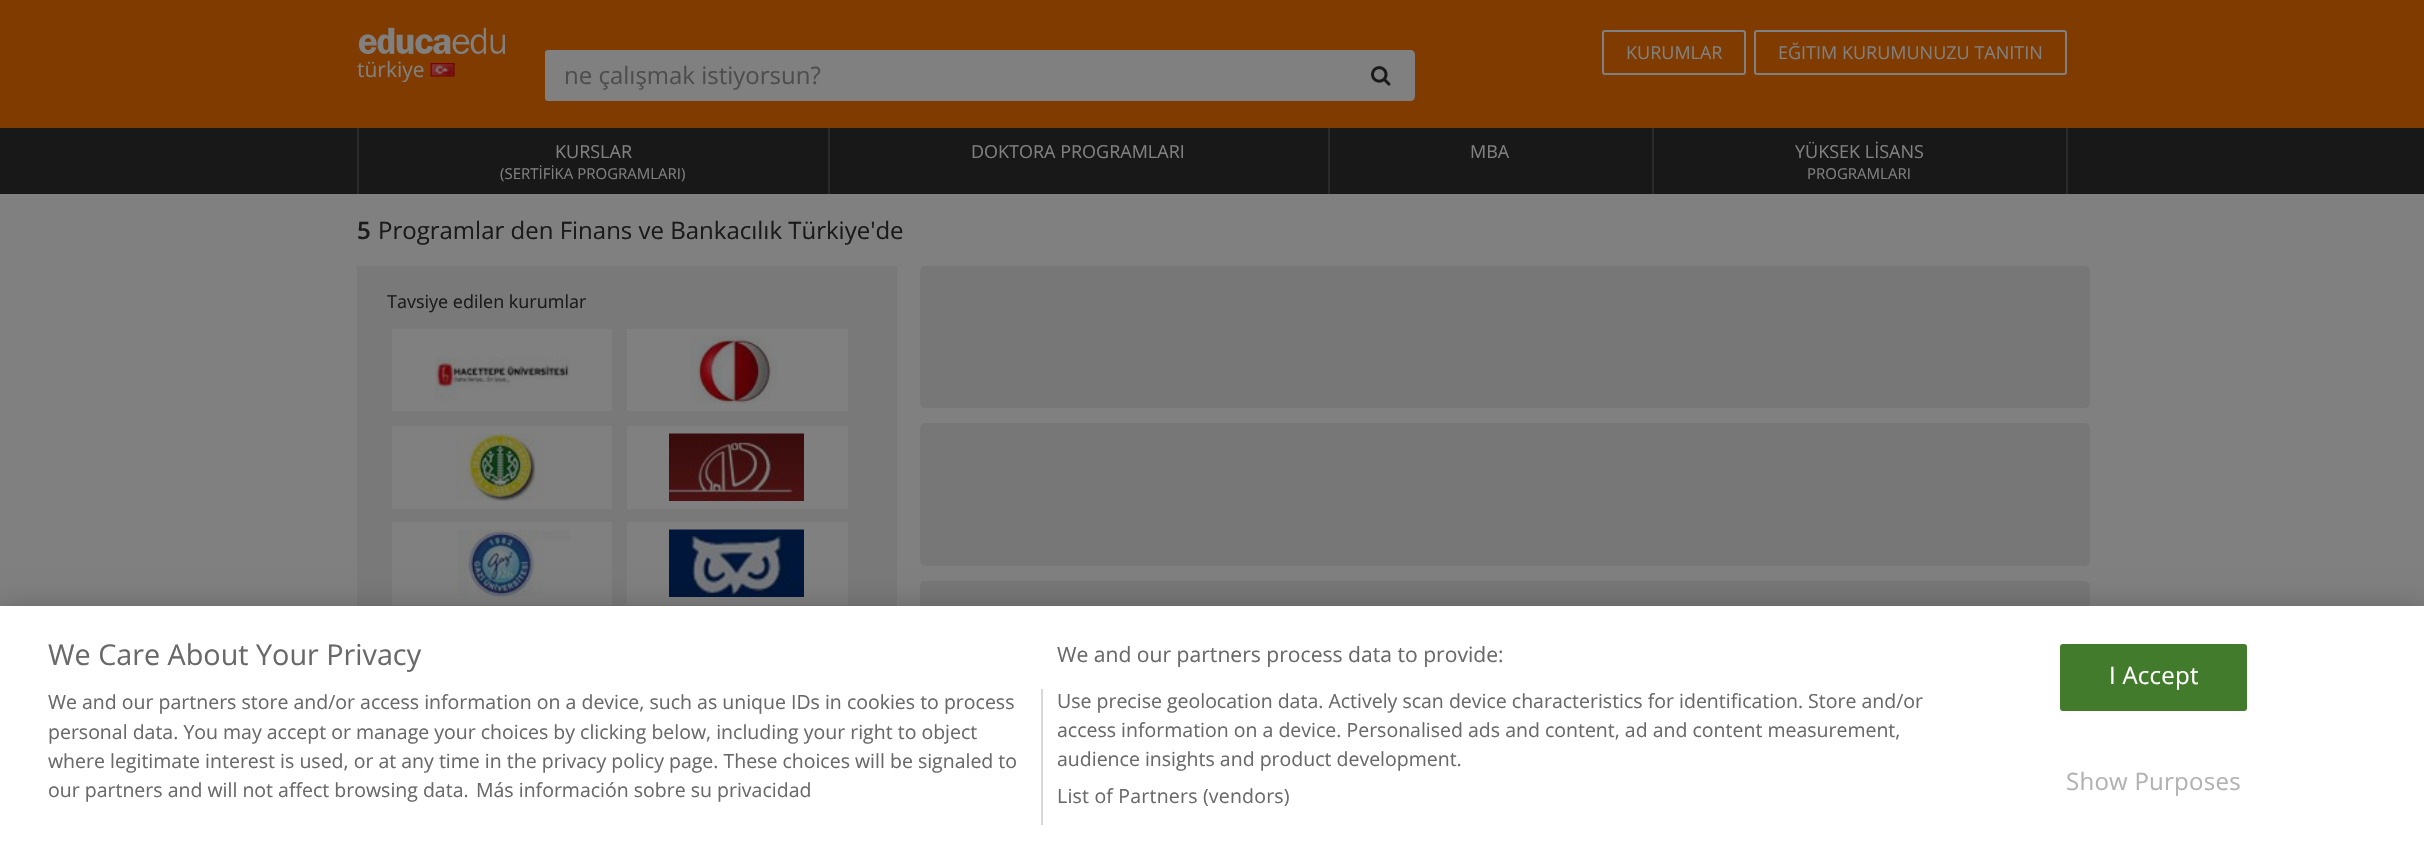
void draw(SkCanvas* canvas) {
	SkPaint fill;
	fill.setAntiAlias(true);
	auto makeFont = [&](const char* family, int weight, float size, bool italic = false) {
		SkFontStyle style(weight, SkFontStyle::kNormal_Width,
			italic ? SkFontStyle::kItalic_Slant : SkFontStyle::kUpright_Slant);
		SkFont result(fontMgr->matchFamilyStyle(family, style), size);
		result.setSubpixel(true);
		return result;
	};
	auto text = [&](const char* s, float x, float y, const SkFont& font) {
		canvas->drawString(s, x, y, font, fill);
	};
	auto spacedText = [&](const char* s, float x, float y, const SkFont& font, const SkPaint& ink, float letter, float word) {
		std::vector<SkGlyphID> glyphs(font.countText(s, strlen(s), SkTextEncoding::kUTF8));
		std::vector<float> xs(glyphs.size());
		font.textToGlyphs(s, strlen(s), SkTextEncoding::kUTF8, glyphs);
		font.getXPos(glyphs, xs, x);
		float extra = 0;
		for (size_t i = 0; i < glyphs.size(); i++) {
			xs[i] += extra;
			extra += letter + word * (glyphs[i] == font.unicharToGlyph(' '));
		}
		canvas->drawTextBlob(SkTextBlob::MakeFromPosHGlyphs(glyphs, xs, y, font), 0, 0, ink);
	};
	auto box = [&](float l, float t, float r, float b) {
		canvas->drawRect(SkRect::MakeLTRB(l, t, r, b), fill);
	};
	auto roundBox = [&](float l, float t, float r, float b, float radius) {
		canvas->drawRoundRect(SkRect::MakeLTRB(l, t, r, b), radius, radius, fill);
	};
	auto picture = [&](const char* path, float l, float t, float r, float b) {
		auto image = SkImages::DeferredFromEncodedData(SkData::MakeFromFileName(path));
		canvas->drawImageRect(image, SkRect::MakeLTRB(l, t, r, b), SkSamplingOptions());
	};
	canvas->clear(0xFF808080);
	fill.setColor(0xFF803B00);
	box(0, 0, 2424, 128);
	fill.setStyle(SkPaint::kStroke_Style);
	fill.setStrokeWidth(2);
	fill.setColor(0xFF808080);
	canvas->drawRoundRect(SkRect::MakeLTRB(1603, 31, 1745, 74), 2, 2, fill);
	canvas->drawRoundRect(SkRect::MakeLTRB(1755, 31, 2066, 74), 2, 2, fill);
	picture("image0.png", 358, 27, 505, 54);
	picture("image1.png", 430, 63, 455, 77);
	fill.setStyle(SkPaint::kFill_Style);
	canvas->drawPath(SkPathBuilder().moveTo(548, 51).lineTo(1346, 51).lineTo(1346, 100).lineTo(548, 100).cubicTo(547, 100, 546, 99, 546, 98).lineTo(546, 53).cubicTo(546, 52, 547, 51, 548, 51).close().detach(), fill);
	fill.setStyle(SkPaint::kStroke_Style);
	canvas->drawPath(SkPathBuilder().moveTo(548, 51).lineTo(1346, 51).lineTo(1346, 100).lineTo(548, 100).cubicTo(547, 100, 546, 99, 546, 98).lineTo(546, 53).cubicTo(546, 52, 547, 51, 548, 51).close().detach(), fill);
	fill.setStyle(SkPaint::kFill_Style);
	canvas->drawPath(SkPathBuilder().moveTo(1346, 50).lineTo(1410, 50).cubicTo(1413, 50, 1415, 52, 1415, 55).lineTo(1415, 96).cubicTo(1415, 99, 1413, 101, 1410, 101).lineTo(1346, 101).close().detach(), fill);
	canvas->drawPath(SkPathBuilder().moveTo(1346, 50).lineTo(1347, 51).cubicTo(1354, 51, 1411, 50, 1412, 52).lineTo(1413, 51).lineTo(1410, 50).close().detach(), fill);
	canvas->drawPath(SkPathBuilder().moveTo(1413, 51).cubicTo(1414, 52, 1414, 53, 1414, 54).lineTo(1414, 96).cubicTo(1414, 97, 1414, 98, 1413, 99).lineTo(1412, 98).cubicTo(1414, 97, 1414, 53, 1412, 52).close().detach(), fill);
	picture("image2.png", 1371, 66, 1391, 86);
	fill.setColor(0xFF181818);
	box(0, 128, 2424, 194);
	fill.setColor(0xFF2A2A2A);
	box(828, 128, 830, 194);
	box(357, 128, 359, 194);
	box(1328, 128, 1330, 194);
	box(1652, 128, 1654, 194);
	box(2066, 128, 2068, 194);
	fill.setColor(0xFF797979);
	box(357, 266, 897, 606);
	fill.setColor(0xFF808080);
	box(392, 329, 612, 411);
	picture("image3.png", 435, 356, 570, 401);
	box(627, 329, 848, 411);
	picture("image4.png", 690, 336, 778, 404);
	box(392, 426, 612, 509);
	picture("image5.png", 456, 433, 544, 501);
	box(627, 426, 848, 509);
	picture("image6.png", 669, 433, 804, 501);
	box(392, 522, 612, 605);
	picture("image7.png", 457, 529, 570, 597);
	box(627, 522, 848, 605);
	picture("image8.png", 669, 529, 804, 597);
	fill.setColor(0xFF777777);
	roundBox(920, 266, 2090, 408, 5);
	roundBox(920, 423, 2090, 566, 5);
	roundBox(920, 581, 2090, 723, 5);
	fill.setColor(0x33000000);
	fill.setMaskFilter(SkMaskFilter::MakeBlur(kNormal_SkBlurStyle, 13.5f));
	canvas->drawRect(SkRect::MakeLTRB(0, 606, 2424, 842), fill);
	fill.setMaskFilter(nullptr);
	fill.setColor(0xFFFFFFFF);
	box(0, 606, 2424, 841);
	fill.setColor(0xFFD8D8D8);
	box(1041, 689, 1043, 825);
	fill.setColor(0xFF437B2D);
	canvas->drawRoundRect(SkRect::MakeLTRB(2061, 645, 2246, 710), 2, 2, fill);
	fill.setStyle(SkPaint::kStroke_Style);
	canvas->drawRoundRect(SkRect::MakeLTRB(2061, 645, 2246, 710), 2, 2, fill);
	auto font1 = makeFont("Open Sans", 400, 18);
	fill.setStyle(SkPaint::kFill_Style);
	fill.setColor(0xFF808080);
	text("KURUMLAR", 1626, 59, font1);
	text("EĞITIM KURUMUNUZU TANITIN", 1778, 59, font1);
	auto font2 = makeFont("Open Sans", 400, 21);
	text("türkiye", 357, 77, font2);
	auto font3 = makeFont("Open Sans", 400, 24);
	fill.setColor(0xFF4D4D4D);
	text("ne çalışmak istiyorsun?", 564, 84, font3);
	fill.setColor(0xFF808080);
	text("KURSLAR", 555, 158, font1);
	auto font4 = makeFont("Open Sans", 400, 15);
	text("(SERTİFİKA PROGRAMLARI)", 500, 179, font4);
	text("DOKTORA PROGRAMLARI", 971, 158, font1);
	text("MBA", 1470, 158, font1);
	text("YÜKSEK LİSANS", 1795, 158, font1);
	text("PROGRAMLARI", 1807, 179, font4);
	auto font5 = makeFont("Open Sans", 600, 24);
	fill.setColor(0xFF1A1A1A);
	text("5", 357, 239, font5);
	text("Programlar den Finans ve Bankacılık Türkiye'de", 378, 239, font3);
	text("Tavsiye edilen kurumlar", 387, 308, font1);
	auto font6 = makeFont("Open Sans", 400, 28.75f);
	fill.setColor(0xFF696969);
	text("We Care About Your Privacy", 48, 665, font6);
	auto font7 = makeFont("Open Sans", 400, 21.1f);
	text("We and our partners process data to provide:", 1057, 662, font7);
	auto font8 = makeFont("Open Sans", 400, 19.5f);
	text("Use precise geolocation data. Actively scan device characteristics for identification. Store and/or", 1057, 708, font8);
	text("access information on a device. Personalised ads and content, ad and content measurement,", 1057, 737, font8);
	text("audience insights and product development.", 1057, 766, font8);
	spacedText("List of Partners (vendors)", 1057, 803, font8, fill, 0.2f, 0);
	text("We and our partners store and/or access information on a device, such as unique IDs in cookies to process", 48, 709, font8);
	text("personal data. You may accept or manage your choices by clicking below, including your right to object", 48, 739, font8);
	text("where legitimate interest is used, or at any time in the privacy policy page. These choices will be signaled to", 48, 768, font8);
	text("our partners and will not affect browsing data.", 48, 797, font8);
	text("Más información sobre su privacidad", 476, 797, font8);
	fill.setColor(0xFFFFFFFF);
	spacedText("I Accept", 2109, 684, font3, fill, 0.25f, 0);
	fill.setColor(0xFFB3B1B1);
	spacedText("Show Purposes", 2066, 790, font3, fill, 0.25f, 0);
}
